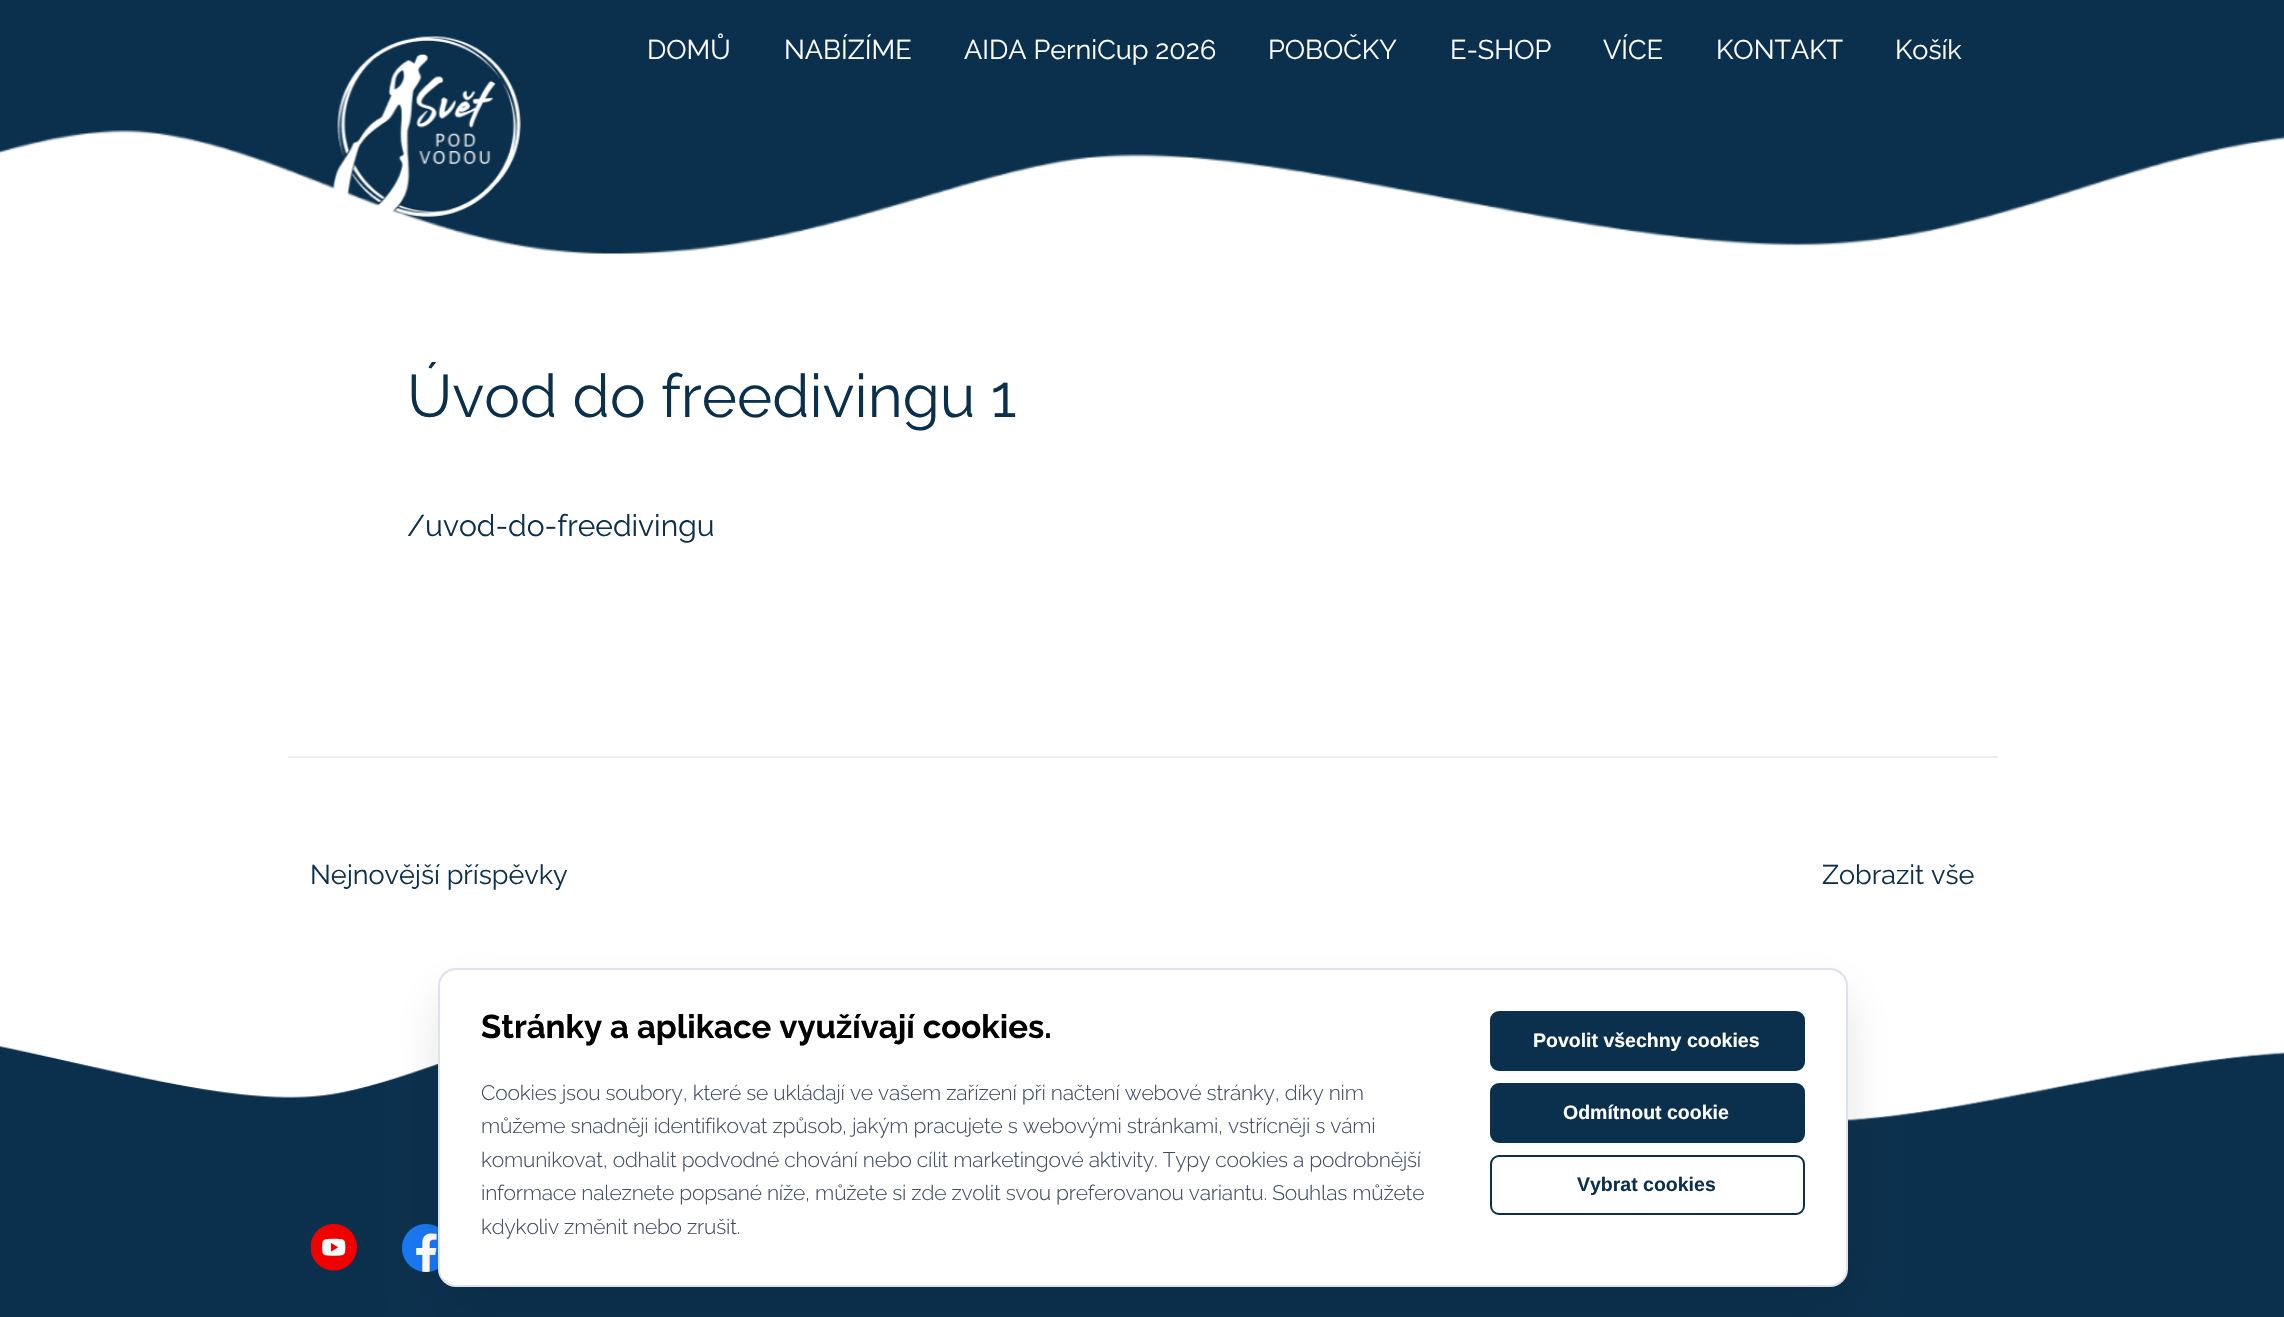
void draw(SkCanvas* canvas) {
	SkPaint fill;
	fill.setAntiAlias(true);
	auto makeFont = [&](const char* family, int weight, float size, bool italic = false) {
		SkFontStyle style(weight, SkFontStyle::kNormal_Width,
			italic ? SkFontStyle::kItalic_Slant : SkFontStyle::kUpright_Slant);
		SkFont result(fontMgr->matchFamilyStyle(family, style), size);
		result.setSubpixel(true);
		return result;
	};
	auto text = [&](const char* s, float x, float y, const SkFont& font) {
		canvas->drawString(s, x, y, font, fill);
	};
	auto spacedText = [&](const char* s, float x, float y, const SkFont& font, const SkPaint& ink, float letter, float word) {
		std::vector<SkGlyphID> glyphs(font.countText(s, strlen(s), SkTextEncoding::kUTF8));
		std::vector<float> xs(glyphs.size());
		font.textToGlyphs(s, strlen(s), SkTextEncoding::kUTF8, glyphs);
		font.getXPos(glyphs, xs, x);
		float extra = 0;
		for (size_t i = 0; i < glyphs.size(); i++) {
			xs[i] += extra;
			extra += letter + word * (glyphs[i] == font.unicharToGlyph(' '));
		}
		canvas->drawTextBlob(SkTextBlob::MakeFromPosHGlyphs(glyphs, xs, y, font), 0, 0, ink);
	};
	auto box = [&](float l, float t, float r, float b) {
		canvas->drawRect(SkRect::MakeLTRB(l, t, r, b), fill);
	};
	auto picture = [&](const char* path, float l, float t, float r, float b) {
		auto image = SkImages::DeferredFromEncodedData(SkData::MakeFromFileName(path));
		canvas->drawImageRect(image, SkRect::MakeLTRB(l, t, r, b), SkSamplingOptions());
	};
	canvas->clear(0xFFFFFFFF);
	picture("image0.png", 0, 0, 2284, 254);
	picture("image1.png", 332, 35, 521, 217);
	fill.setColor(0xFFEEEEEE);
	box(288, 756, 1998, 758);
	fill.setColor(0xFF0B304D);
	box(0, 1217, 2284, 1317);
	picture("image2.png", 0, 1046, 2284, 1217);
	picture("image4.png", 402, 1224, 438, 1272);
	fill.setColor(0x2609111D);
	fill.setMaskFilter(SkMaskFilter::MakeBlur(kNormal_SkBlurStyle, 26));
	canvas->drawRoundRect(SkRect::MakeLTRB(446, 998, 1841, 1302), 11, 11, fill);
	fill.setMaskFilter(nullptr);
	fill.setColor(0xFFFFFFFF);
	canvas->drawRoundRect(SkRect::MakeLTRB(439, 969, 1847, 1286), 17, 17, fill);
	fill.setStyle(SkPaint::kStroke_Style);
	fill.setStrokeWidth(2);
	fill.setColor(0xFFDEE2EA);
	canvas->drawRoundRect(SkRect::MakeLTRB(439, 969, 1847, 1286), 17, 17, fill);
	fill.setStyle(SkPaint::kFill_Style);
	fill.setColor(0xFF0B304D);
	canvas->drawRoundRect(SkRect::MakeLTRB(1491, 1012, 1804, 1070), 8, 8, fill);
	fill.setStyle(SkPaint::kStroke_Style);
	canvas->drawRoundRect(SkRect::MakeLTRB(1491, 1012, 1804, 1070), 8, 8, fill);
	fill.setStyle(SkPaint::kFill_Style);
	canvas->drawRoundRect(SkRect::MakeLTRB(1491, 1084, 1804, 1142), 8, 8, fill);
	fill.setStyle(SkPaint::kStroke_Style);
	canvas->drawRoundRect(SkRect::MakeLTRB(1491, 1084, 1804, 1142), 8, 8, fill);
	canvas->drawRoundRect(SkRect::MakeLTRB(1491, 1156, 1804, 1214), 8, 8, fill);
	picture("image3.png", 311, 1224, 357, 1271);
	auto font1 = makeFont("Raleway", 400, 27);
	fill.setStyle(SkPaint::kFill_Style);
	fill.setColor(0xFFFFFFFF);
	text("DOMŮ", 647, 59, font1);
	text("NABÍZÍME", 784, 59, font1);
	text("AIDA PerniCup 2026", 964, 59, font1);
	text("POBOČKY", 1268, 59, font1);
	text("E-SHOP", 1450, 59, font1);
	text("VÍCE", 1603, 59, font1);
	text("KONTAKT", 1716, 59, font1);
	text("Košík", 1895, 59, font1);
	auto font2 = makeFont("Raleway", 400, 60);
	fill.setColor(0xFF0B304D);
	text("Úvod do freedivingu 1", 407, 417, font2);
	auto font3 = makeFont("Raleway", 400, 30);
	text("/uvod-do-freedivingu", 407, 536, font3);
	text("Nejnovější příspěvky", 310, 884, font1);
	text("Zobrazit vše", 1822, 884, font1);
	auto font4 = makeFont("Raleway", 700, 33);
	fill.setColor(0xFF000000);
	text("Stránky a aplikace využívají cookies.", 481, 1038, font4);
	auto font5 = makeFont("Raleway", 300, 21);
	fill.setColor(0xFF414B63);
	spacedText("Cookies jsou soubory, které se ukládají ve vašem zařízení při načtení webové stránky, díky nim", 481, 1100, font5, fill, -0.2f, 0);
	spacedText("můžeme snadněji identifikovat způsob, jakým pracujete s webovými stránkami, vstřícněji s vámi", 481, 1133, font5, fill, -0.2f, 0);
	spacedText("komunikovat, odhalit podvodné chování nebo cílit marketingové aktivity. Typy cookies a podrobnější", 481, 1167, font5, fill, -0.2f, 0);
	spacedText("informace naleznete popsané níže, můžete si zde zvolit svou preferovanou variantu. Souhlas můžete", 481, 1200, font5, fill, -0.2f, 0);
	spacedText("kdykoliv změnit nebo zrušit.", 481, 1234, font5, fill, -0.2f, 0);
	auto font6 = makeFont("Liberation Sans", 700, 19.5f);
	fill.setColor(0xFFFFFFFF);
	text("Povolit všechny cookies", 1533, 1047, font6);
	text("Odmítnout cookie", 1563, 1119, font6);
	fill.setColor(0xFF0B304D);
	text("Vybrat cookies", 1577, 1191, font6);
}
